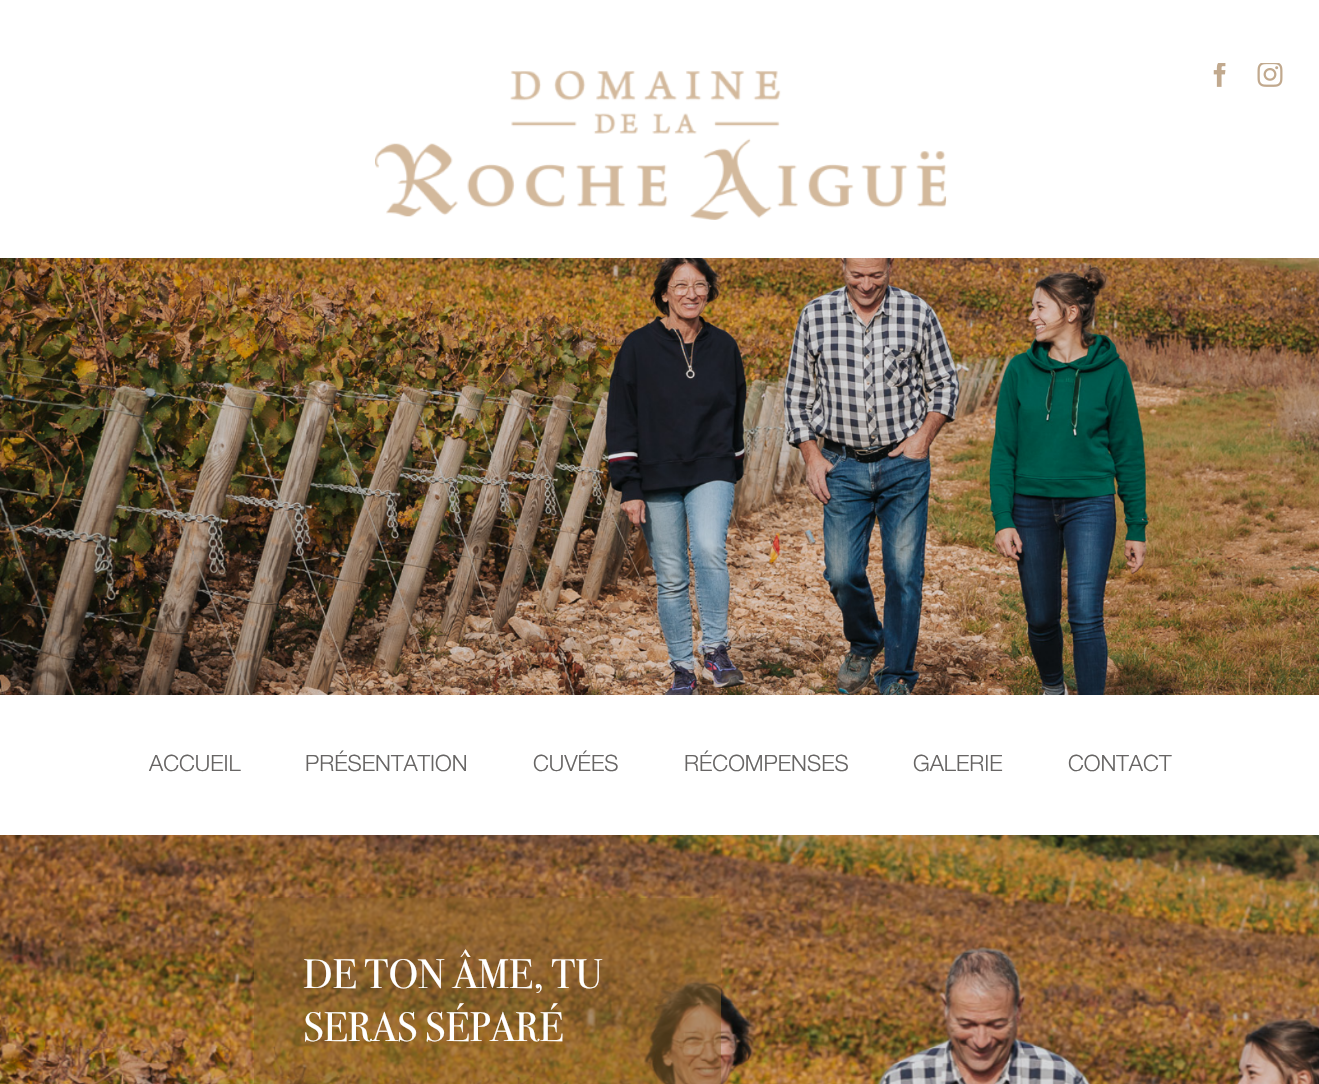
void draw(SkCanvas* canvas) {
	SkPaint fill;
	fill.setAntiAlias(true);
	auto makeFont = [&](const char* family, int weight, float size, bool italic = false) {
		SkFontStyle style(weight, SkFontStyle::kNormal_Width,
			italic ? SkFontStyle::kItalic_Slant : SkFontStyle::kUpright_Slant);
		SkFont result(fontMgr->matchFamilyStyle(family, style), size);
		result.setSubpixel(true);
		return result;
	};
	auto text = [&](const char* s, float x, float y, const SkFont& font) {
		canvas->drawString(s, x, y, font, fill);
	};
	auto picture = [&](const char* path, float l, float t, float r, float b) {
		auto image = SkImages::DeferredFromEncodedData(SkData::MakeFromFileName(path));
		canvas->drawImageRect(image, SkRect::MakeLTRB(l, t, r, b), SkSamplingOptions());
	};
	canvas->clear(0xFFFFFFFF);
	picture("image0.png", 375, 70, 947, 220);
	picture("image1.png", 1213, 63, 1226, 87);
	picture("image2.png", 1257, 63, 1283, 87);
	picture("image3.png", 0, 258, 1319, 695);
	picture("image4.png", 0, 835, 1319, 1084);
	auto font1 = makeFont("Helvetica Neue", 300, 22.5f);
	fill.setColor(0xFF676564);
	text("ACCUEIL", 149, 771, font1);
	text("PRÉSENTATION", 305, 771, font1);
	text("CUVÉES", 533, 771, font1);
	text("RÉCOMPENSES", 684, 771, font1);
	text("GALERIE", 913, 771, font1);
	text("CONTACT", 1068, 771, font1);
	auto font2 = makeFont("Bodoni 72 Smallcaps", 400, 41.25f);
	fill.setColor(0xFFFFFFFF);
	text("DE TON ÂME, TU", 303, 988, font2);
	text("SERAS SÉPARÉ", 303, 1041, font2);
}
